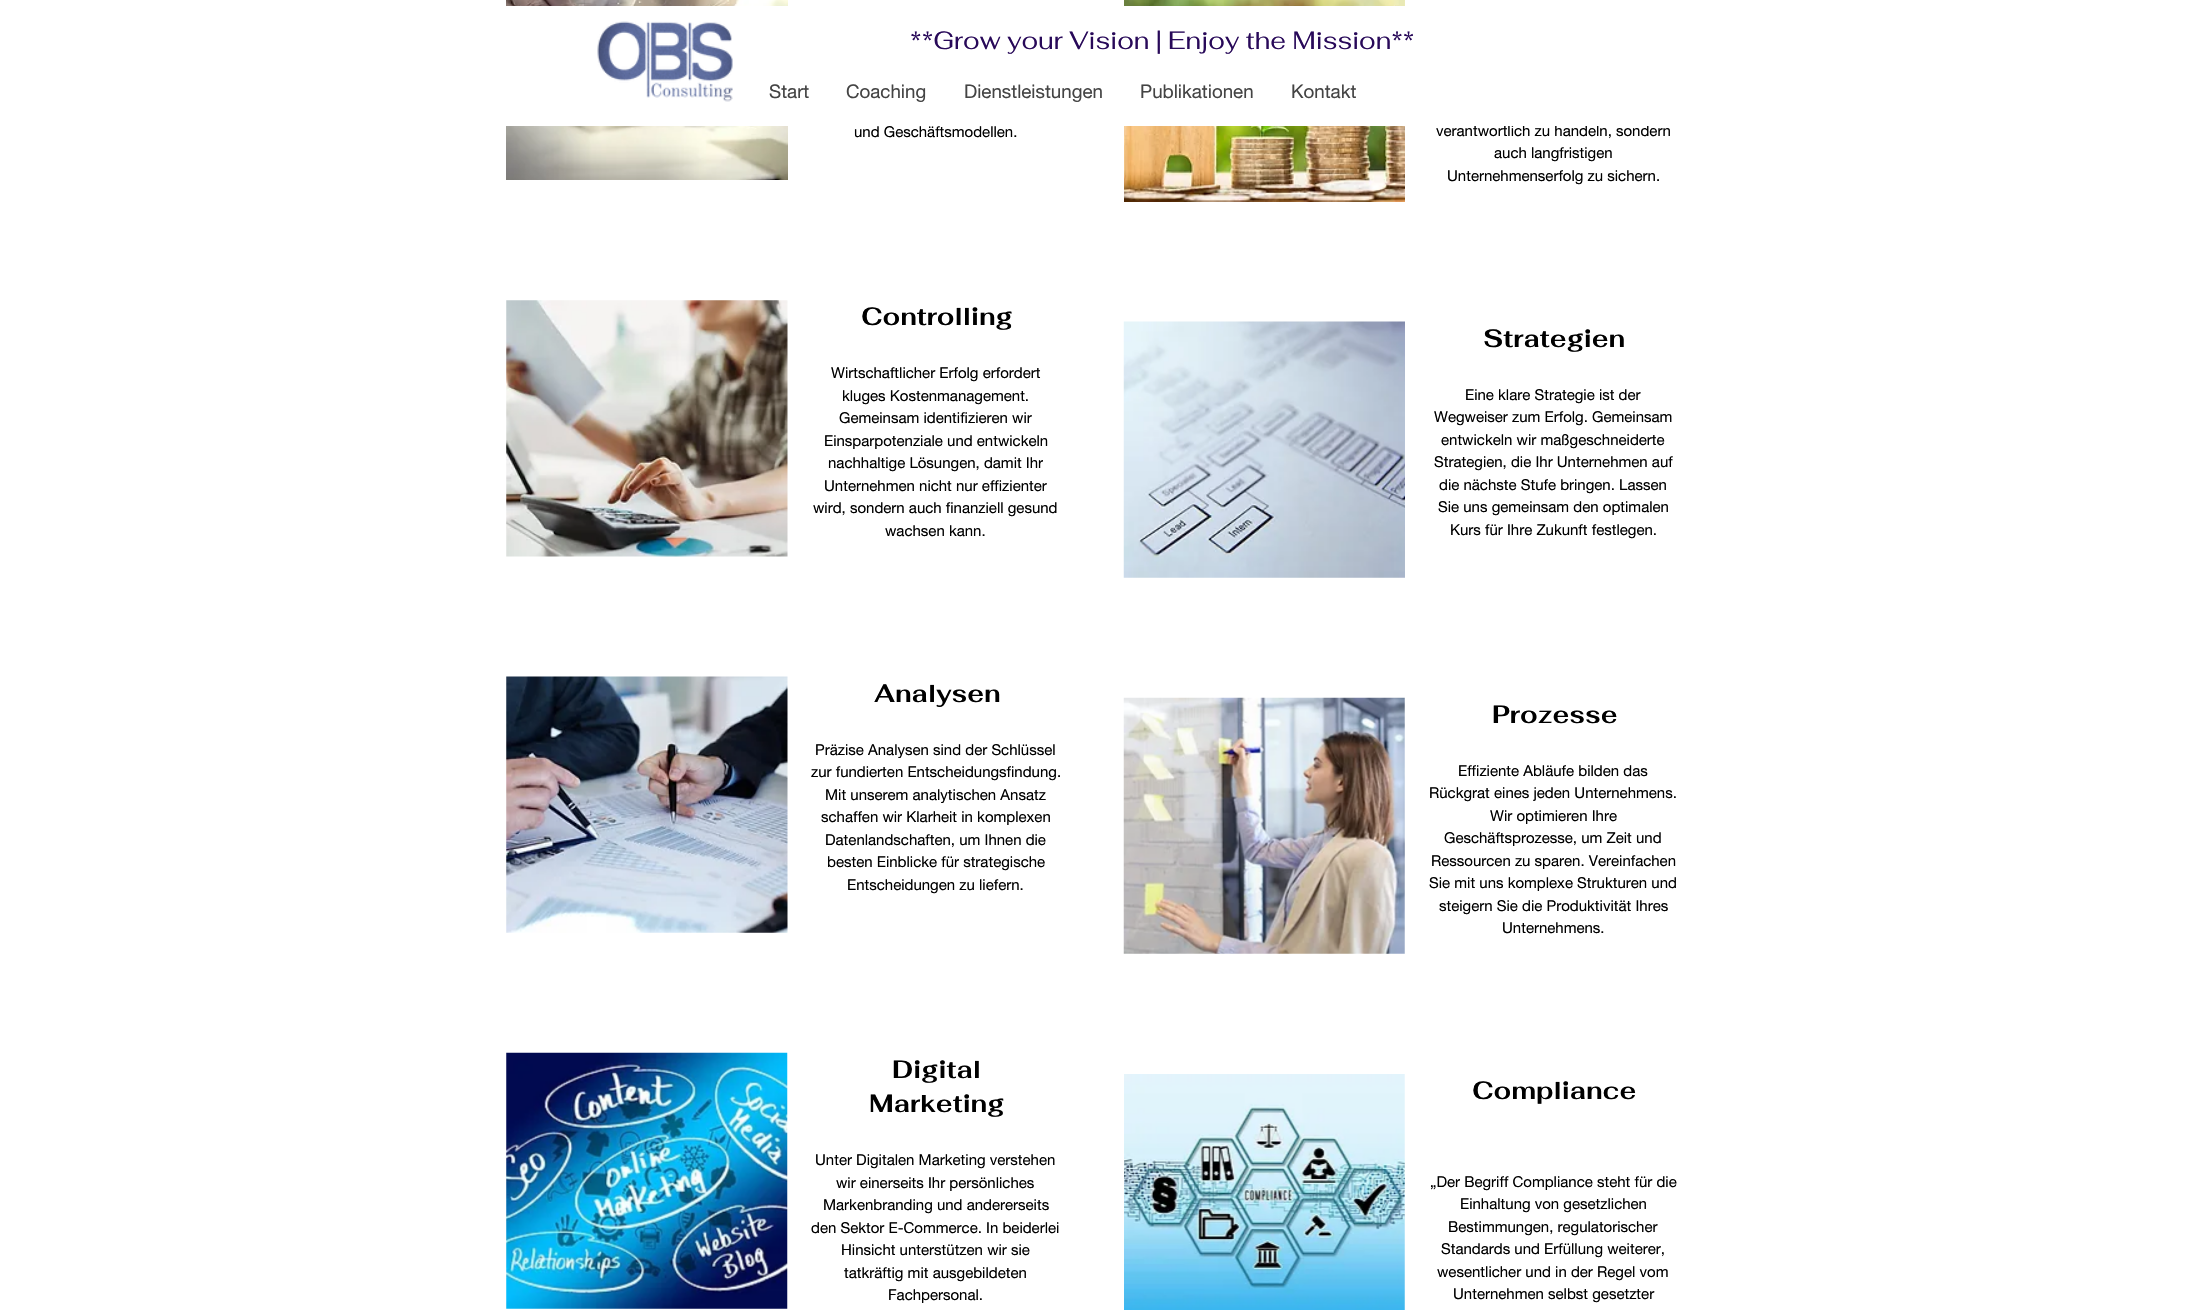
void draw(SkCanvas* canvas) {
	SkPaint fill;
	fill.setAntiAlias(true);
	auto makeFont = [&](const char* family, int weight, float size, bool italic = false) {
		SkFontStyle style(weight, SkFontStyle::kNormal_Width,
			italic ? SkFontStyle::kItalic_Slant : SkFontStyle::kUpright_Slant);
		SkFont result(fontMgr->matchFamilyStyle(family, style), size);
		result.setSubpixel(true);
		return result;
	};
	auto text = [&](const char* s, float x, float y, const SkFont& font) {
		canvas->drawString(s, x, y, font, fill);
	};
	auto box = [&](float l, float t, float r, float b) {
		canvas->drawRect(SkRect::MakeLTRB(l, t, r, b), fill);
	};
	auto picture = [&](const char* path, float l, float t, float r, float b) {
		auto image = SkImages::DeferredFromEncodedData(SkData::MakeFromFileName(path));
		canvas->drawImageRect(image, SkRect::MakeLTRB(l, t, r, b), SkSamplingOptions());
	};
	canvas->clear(0xFFFFFFFF);
	picture("image1.png", 506, 0, 788, 180);
	picture("image2.png", 506, 300, 788, 557);
	picture("image3.png", 506, 676, 788, 933);
	picture("image4.png", 506, 1052, 788, 1309);
	picture("image5.png", 1124, 0, 1405, 202);
	picture("image6.png", 1123, 321, 1405, 578);
	picture("image7.png", 1123, 697, 1405, 954);
	picture("image8.png", 1124, 1074, 1405, 1310);
	auto font1 = makeFont("helvetica neue", 400, 15);
	fill.setColor(0xFF000000);
	text("und Geschäftsmodellen.", 854, 137, font1);
	auto font2 = makeFont("Fahkwang", 700, 25);
	text("Controlling", 861, 325, font2);
	text("Wirtschaftlicher Erfolg erfordert", 831, 378, font1);
	text("kluges Kostenmanagement.", 842, 401, font1);
	text("Gemeinsam identifizieren wir", 839, 423, font1);
	text("Einsparpotenziale und entwickeln", 824, 446, font1);
	text("nachhaltige Lösungen, damit Ihr", 828, 468, font1);
	text("Unternehmen nicht nur effizienter", 824, 491, font1);
	text("wird, sondern auch finanziell gesund", 813, 513, font1);
	text("wachsen kann.", 885, 536, font1);
	text("Analysen", 874, 702, font2);
	text("Präzise Analysen sind der Schlüssel", 815, 755, font1);
	text("zur fundierten Entscheidungsfindung.", 811, 777, font1);
	text("Mit unserem analytischen Ansatz", 825, 800, font1);
	text("schaffen wir Klarheit in komplexen", 821, 822, font1);
	text("Datenlandschaften, um Ihnen die", 825, 845, font1);
	text("besten Einblicke für strategische", 827, 867, font1);
	text("Entscheidungen zu liefern.", 847, 890, font1);
	text("Digital", 892, 1078, font2);
	text("Marketing", 869, 1112, font2);
	text("Unter Digitalen Marketing verstehen", 815, 1165, font1);
	text("wir einerseits Ihr persönliches", 836, 1188, font1);
	text("Markenbranding und andererseits", 823, 1210, font1);
	text("den Sektor E-Commerce. In beiderlei", 811, 1233, font1);
	text("Hinsicht unterstützen wir sie", 841, 1255, font1);
	text("tatkräftig mit ausgebildeten", 844, 1278, font1);
	text("Fachpersonal.", 888, 1300, font1);
	text("verantwortlich zu handeln, sondern", 1436, 136, font1);
	fill.setColor(0xFFFFFFFF);
	box(506, 6, 1649, 126);
	auto font3 = makeFont("helvetica neue", 400, 18.75f);
	fill.setColor(0xFF444444);
	text("Kontakt", 1291, 98, font3);
	text("Publikationen", 1140, 98, font3);
	text("Dienstleistungen", 964, 98, font3);
	text("Coaching", 846, 98, font3);
	text("Start", 769, 98, font3);
	auto font4 = makeFont("Fahkwang", 400, 25);
	fill.setColor(0xFF280959);
	text("**Grow your Vision | Enjoy the Mission**", 910, 49, font4);
	picture("image0.png", 597, 21, 733, 102);
	fill.setColor(0xFF000000);
	text("auch langfristigen", 1494, 158, font1);
	text("Unternehmenserfolg zu sichern.", 1447, 181, font1);
	text("Strategien", 1483, 347, font2);
	text("Eine klare Strategie ist der", 1465, 400, font1);
	text("Wegweiser zum Erfolg. Gemeinsam", 1434, 422, font1);
	text("entwickeln wir maßgeschneiderte", 1441, 445, font1);
	text("Strategien, die Ihr Unternehmen auf", 1434, 467, font1);
	text("die nächste Stufe bringen. Lassen", 1439, 490, font1);
	text("Sie uns gemeinsam den optimalen", 1438, 512, font1);
	text("Kurs für Ihre Zukunft festlegen.", 1450, 535, font1);
	text("Prozesse", 1492, 723, font2);
	text("Effiziente Abläufe bilden das", 1458, 776, font1);
	text("Rückgrat eines jeden Unternehmens.", 1429, 798, font1);
	text("Wir optimieren Ihre", 1490, 821, font1);
	text("Geschäftsprozesse, um Zeit und", 1444, 843, font1);
	text("Ressourcen zu sparen. Vereinfachen", 1431, 866, font1);
	text("Sie mit uns komplexe Strukturen und", 1429, 888, font1);
	text("steigern Sie die Produktivität Ihres", 1439, 911, font1);
	text("Unternehmens.", 1502, 933, font1);
	text("Compliance", 1472, 1099, font2);
	text("„Der Begriff Compliance steht für die", 1430, 1187, font1);
	text("Einhaltung von gesetzlichen", 1460, 1209, font1);
	text("Bestimmungen, regulatorischer", 1448, 1232, font1);
	text("Standards und Erfüllung weiterer,", 1441, 1254, font1);
	text("wesentlicher und in der Regel vom", 1437, 1277, font1);
	text("Unternehmen selbst gesetzter", 1453, 1299, font1);
}
